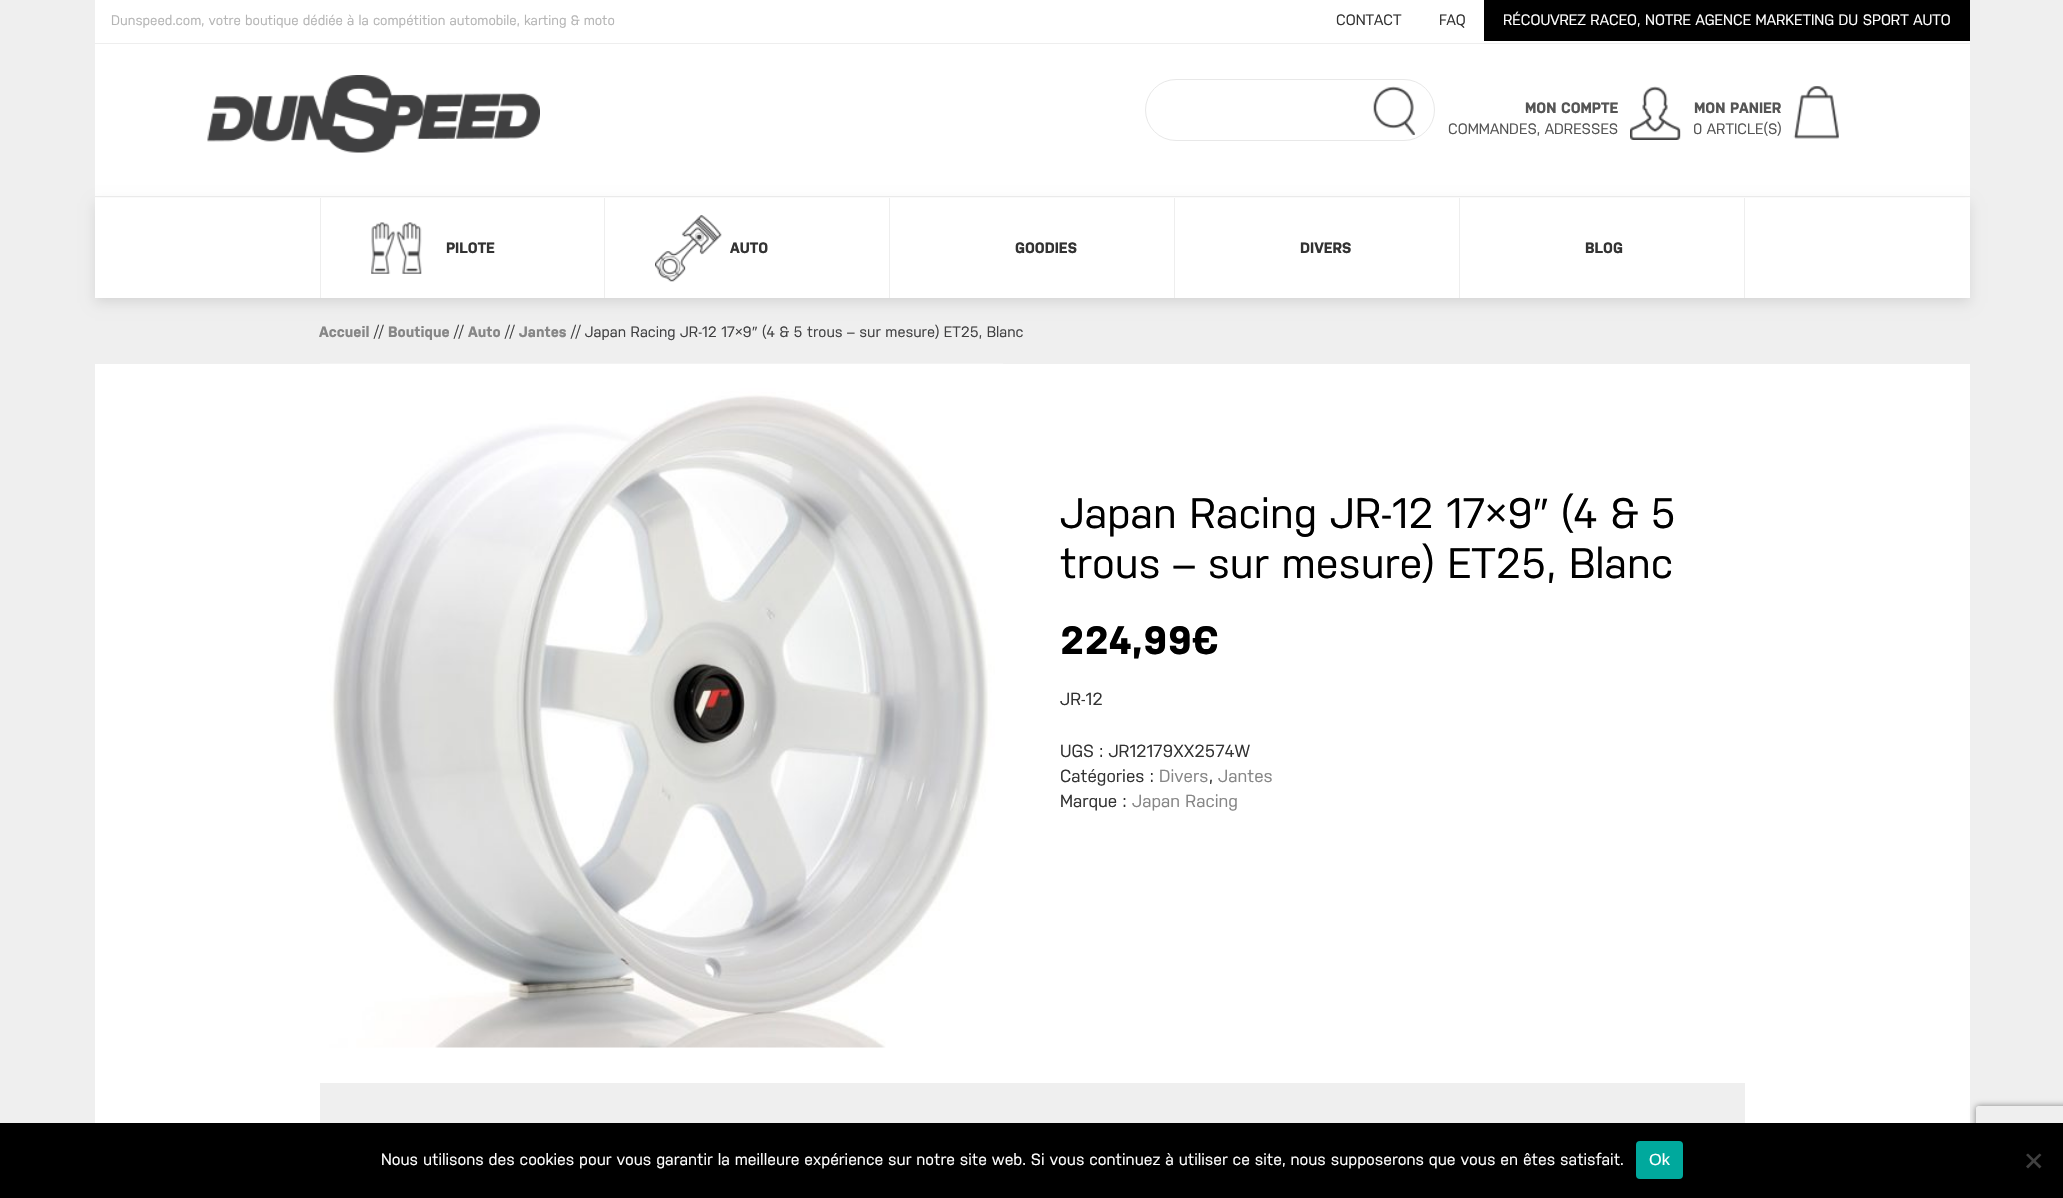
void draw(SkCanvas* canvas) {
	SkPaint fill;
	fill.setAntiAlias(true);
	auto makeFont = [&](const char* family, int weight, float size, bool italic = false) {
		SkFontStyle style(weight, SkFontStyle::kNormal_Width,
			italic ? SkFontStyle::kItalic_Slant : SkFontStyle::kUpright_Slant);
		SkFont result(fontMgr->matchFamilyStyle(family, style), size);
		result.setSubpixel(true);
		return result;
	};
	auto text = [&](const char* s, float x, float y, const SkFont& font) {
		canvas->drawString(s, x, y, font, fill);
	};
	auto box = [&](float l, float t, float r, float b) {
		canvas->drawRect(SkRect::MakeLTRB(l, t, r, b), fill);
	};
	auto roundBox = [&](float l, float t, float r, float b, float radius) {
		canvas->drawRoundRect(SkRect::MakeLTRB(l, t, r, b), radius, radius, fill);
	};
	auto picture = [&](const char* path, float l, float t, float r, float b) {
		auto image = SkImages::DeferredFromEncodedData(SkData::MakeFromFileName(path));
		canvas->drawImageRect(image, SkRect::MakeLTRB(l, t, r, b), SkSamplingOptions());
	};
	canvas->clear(0xFFEFEFEF);
	fill.setColor(0xFFFFFFFF);
	box(95, 0, 1970, 1123);
	fill.setColor(0xFFEEEEEE);
	box(95, 43, 1970, 44);
	fill.setColor(0xFF000000);
	box(1484, 0, 1970, 41);
	picture("image0.png", 207, 75, 540, 153);
	picture("image1.png", 1373, 86, 1415, 135);
	fill.setStyle(SkPaint::kStroke_Style);
	fill.setStrokeWidth(1);
	fill.setColor(0xFFE8E8E8);
	canvas->drawRoundRect(SkRect::MakeLTRB(1145.5f, 79.5f, 1434.5f, 140.5f), 30.5f, 30.5f, fill);
	picture("image2.png", 1630, 86, 1681, 140);
	picture("image3.png", 1793, 86, 1839, 139);
	fill.setStyle(SkPaint::kFill_Style);
	fill.setColor(0xFFEEEEEE);
	box(95, 196, 1970, 197);
	box(95, 298, 1970, 299);
	fill.setColor(0xFFEFEFEF);
	box(95, 299, 1970, 364);
	fill.setColor(0x1A000000);
	fill.setMaskFilter(SkMaskFilter::MakeBlur(kNormal_SkBlurStyle, 6));
	canvas->drawRect(SkRect::MakeLTRB(95, 203, 1970, 303), fill);
	fill.setMaskFilter(nullptr);
	fill.setColor(0xFFFFFFFF);
	box(95, 198, 1970, 298);
	fill.setColor(0xFFEEEEEE);
	box(1744, 198, 1745, 298);
	picture("image4.png", 371, 222, 422, 274);
	box(320, 198, 321, 298);
	picture("image5.png", 655, 215, 722, 282);
	box(604, 198, 605, 298);
	box(889, 198, 890, 298);
	box(1174, 198, 1175, 298);
	box(1459, 198, 1460, 298);
	picture("image6.png", 320, 363, 1003, 1048);
	fill.setColor(0xFFEFEFEF);
	box(320, 1083, 1745, 1123);
	canvas->save();
	canvas->clipPath(SkPathBuilder(SkPathFillType::kEvenOdd).moveTo(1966, 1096).lineTo(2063, 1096).lineTo(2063, 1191).lineTo(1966, 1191).close().moveTo(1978.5f, 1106).lineTo(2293.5f, 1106).cubicTo(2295, 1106, 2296, 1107, 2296, 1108.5f).lineTo(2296, 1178.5f).cubicTo(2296, 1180, 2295, 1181, 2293.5f, 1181).lineTo(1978.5f, 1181).cubicTo(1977, 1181, 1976, 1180, 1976, 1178.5f).lineTo(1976, 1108.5f).cubicTo(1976, 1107, 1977, 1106, 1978.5f, 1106).close().detach(), true);
	fill.setColor(0xFF808080);
	fill.setMaskFilter(SkMaskFilter::MakeBlur(kNormal_SkBlurStyle, 3));
	canvas->drawRoundRect(SkRect::MakeLTRB(1976, 1106, 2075, 1181), 2.5f, 2.5f, fill);
	fill.setMaskFilter(nullptr);
	canvas->restore();
	fill.setColor(0xFF000000);
	box(0, 1123, 2063, 1198);
	fill.setColor(0xFF00A99D);
	roundBox(1636, 1141, 1683, 1179, 4);
	fill.setColor(0xFF404040);
	canvas->drawPath(SkPathBuilder().moveTo(2039.5f, 1153.5f).lineTo(2041.5f, 1155).lineTo(2028, 1168.5f).lineTo(2026, 1166.5f).close().detach(), fill);
	canvas->drawPath(SkPathBuilder().moveTo(2026, 1155).lineTo(2028, 1153.5f).lineTo(2041.5f, 1166.5f).lineTo(2039.5f, 1168.5f).close().detach(), fill);
	auto font1 = makeFont("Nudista", 500, 13.75f);
	fill.setColor(0xFFB5B5B5);
	text("Dunspeed.com, votre boutique dédiée à la compétition automobile, karting & moto", 111, 25, font1);
	auto font2 = makeFont("Nudista", 500, 15);
	fill.setColor(0xFF333333);
	text("CONTACT", 1336, 25, font2);
	text("FAQ", 1439, 25, font2);
	fill.setColor(0xFFFFFFFF);
	text("RÉCOUVREZ RACEO, NOTRE AGENCE MARKETING DU SPORT AUTO", 1503, 25, font2);
	auto font3 = makeFont("Nudista", 700, 15);
	fill.setColor(0xFF555555);
	text("MON COMPTE", 1525, 113, font3);
	text("COMMANDES, ADRESSES", 1448, 134, font2);
	text("MON PANIER", 1694, 113, font3);
	text("0 ARTICLE(S)", 1693, 134, font2);
	fill.setColor(0xFF333333);
	text("PILOTE", 446, 253, font3);
	text("AUTO", 730, 253, font3);
	text("GOODIES", 1015, 253, font3);
	text("DIVERS", 1300, 253, font3);
	text("BLOG", 1585, 253, font3);
	fill.setColor(0xFF868686);
	text("Accueil", 319, 337, font3);
	fill.setColor(0xFF404041);
	text("//", 374, 337, font2);
	fill.setColor(0xFF868686);
	text("Boutique", 388, 337, font3);
	fill.setColor(0xFF404041);
	text("//", 454, 337, font2);
	fill.setColor(0xFF868686);
	text("Auto", 468, 337, font3);
	fill.setColor(0xFF404041);
	text("//", 505, 337, font2);
	fill.setColor(0xFF868686);
	text("Jantes", 519, 337, font3);
	fill.setColor(0xFF404041);
	text("// Japan Racing JR-12 17×9", 571, 337, font2);
	auto font4 = makeFont("Liberation Sans", 400, 15);
	text("″", 752, 337, font4);
	text("(4 & 5 trous – sur mesure) ET25, Blanc", 762, 337, font2);
	auto font5 = makeFont("Nudista", 500, 42.5f);
	fill.setColor(0xFF000000);
	text("Japan Racing JR-12 17×9", 1060, 528, font5);
	auto font6 = makeFont("Liberation Sans", 400, 42.5f);
	text("″", 1533, 528, font6);
	text("(4 & 5", 1561, 528, font5);
	text("trous – sur mesure) ET25, Blanc", 1060, 578, font5);
	auto font7 = makeFont("Nudista", 700, 39.5f);
	text("224,99€", 1060, 654, font7);
	auto font8 = makeFont("Nudista", 500, 17.5f);
	fill.setColor(0xFF333333);
	text("JR-12", 1060, 705, font8);
	text("UGS : JR12179XX2574W", 1060, 757, font8);
	text("Catégories :", 1060, 782, font8);
	fill.setColor(0xFF868686);
	text("Divers", 1159, 782, font8);
	fill.setColor(0xFF333333);
	text(",", 1209, 782, font8);
	fill.setColor(0xFF868686);
	text("Jantes", 1218, 782, font8);
	fill.setColor(0xFF333333);
	text("Marque :", 1060, 807, font8);
	fill.setColor(0xFF868686);
	text("Japan Racing", 1132, 807, font8);
	auto font9 = makeFont("Nudista", 500, 16.25f);
	fill.setColor(0xFFFFFFFF);
	text("Nous utilisons des cookies pour vous garantir la meilleure expérience sur notre site web. Si vous continuez à utiliser ce site, nous supposerons que vous en êtes satisfait.", 381, 1165, font9);
	auto font10 = makeFont("Liberation Sans", 400, 16.25f);
	text("Ok", 1649, 1165, font10);
}
